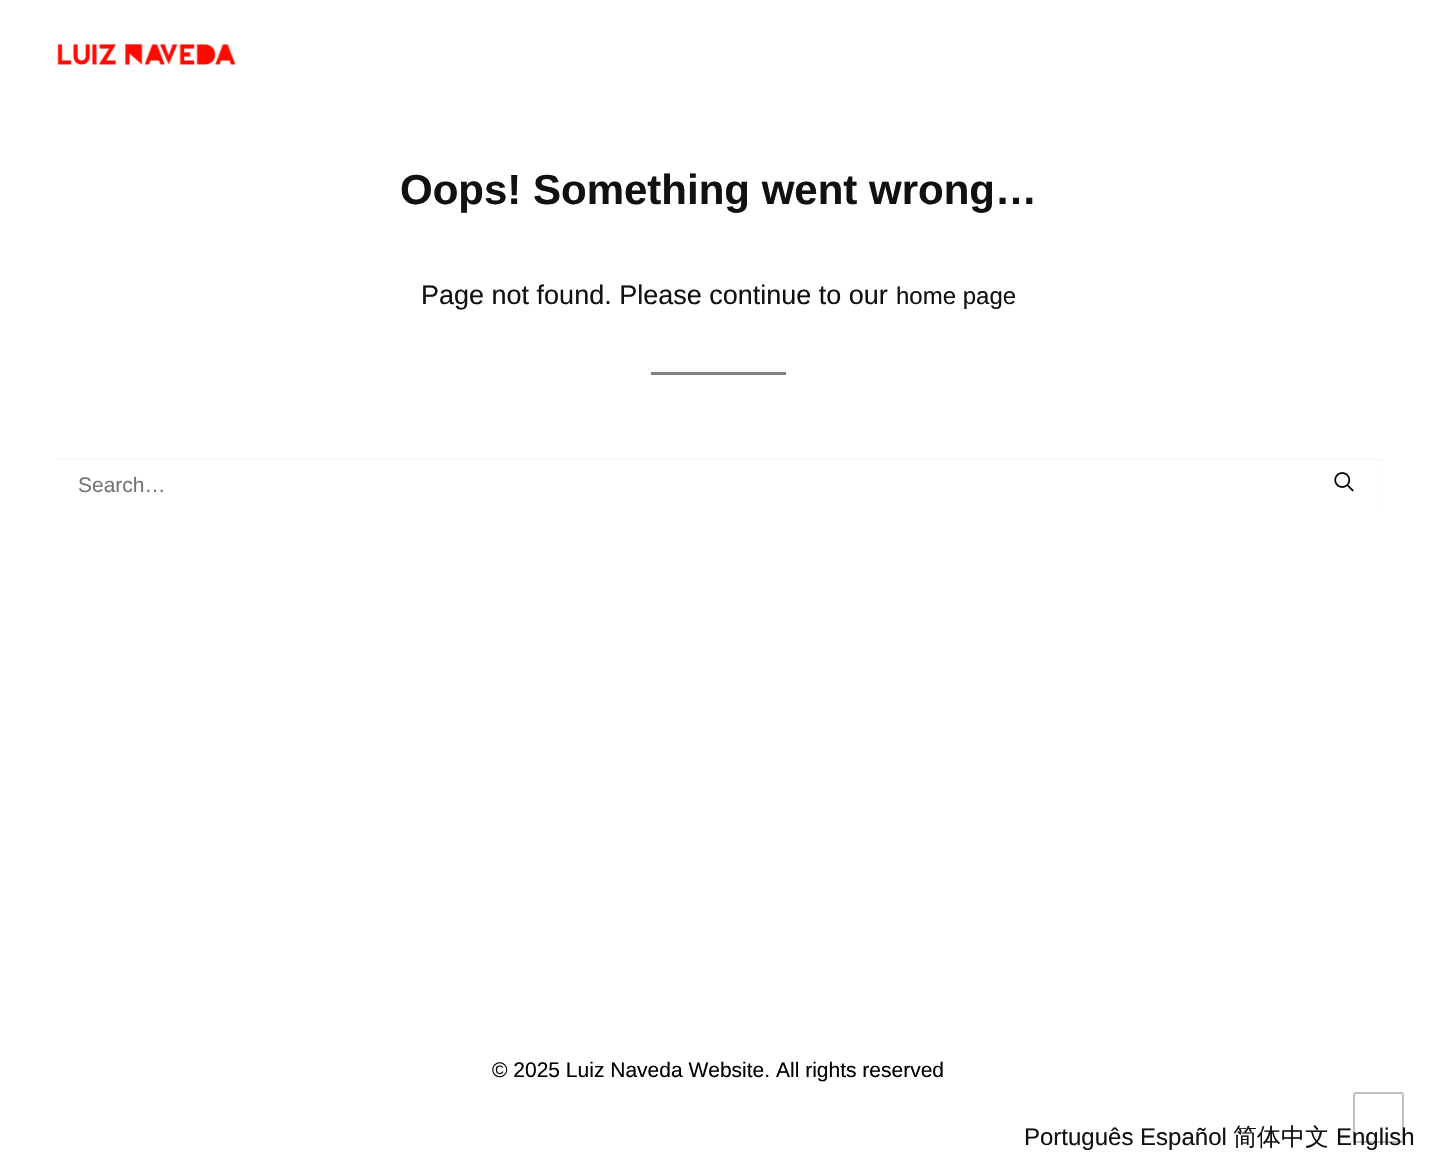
void draw(SkCanvas* canvas) {
	SkPaint fill;
	fill.setAntiAlias(true);
	auto makeFont = [&](const char* family, int weight, float size, bool italic = false) {
		SkFontStyle style(weight, SkFontStyle::kNormal_Width,
			italic ? SkFontStyle::kItalic_Slant : SkFontStyle::kUpright_Slant);
		SkFont result(fontMgr->matchFamilyStyle(family, style), size);
		result.setSubpixel(true);
		return result;
	};
	auto text = [&](const char* s, float x, float y, const SkFont& font) {
		canvas->drawString(s, x, y, font, fill);
	};
	auto box = [&](float l, float t, float r, float b) {
		canvas->drawRect(SkRect::MakeLTRB(l, t, r, b), fill);
	};
	auto picture = [&](const char* path, float l, float t, float r, float b) {
		auto image = SkImages::DeferredFromEncodedData(SkData::MakeFromFileName(path));
		canvas->drawImageRect(image, SkRect::MakeLTRB(l, t, r, b), SkSamplingOptions());
	};
	canvas->clear(0xFFFFFFFF);
	picture("image0.png", 57, 44, 236, 65);
	fill.setColor(0xFF808080);
	box(651, 372, 786, 375);
	fill.setColor(0xFFF9F9F9);
	canvas->drawPath(SkPathBuilder().moveTo(57, 460).lineTo(1380, 460).lineTo(1382, 462).lineTo(1381, 512).lineTo(1382, 511).lineTo(1382, 460).cubicTo(1382, 459, 1381, 458, 1380, 458).lineTo(58, 458).lineTo(56, 459).lineTo(56, 461).close().detach(), fill);
	picture("image1.png", 1334, 472, 1354, 492);
	fill.setStyle(SkPaint::kStroke_Style);
	fill.setStrokeWidth(2);
	fill.setColor(0xFFC0C0C0);
	canvas->drawRoundRect(SkRect::MakeLTRB(1354, 1093, 1403, 1142), 2, 2, fill);
	auto font1 = makeFont("Liberation Sans", 700, 42);
	fill.setStyle(SkPaint::kFill_Style);
	fill.setColor(0xFF111111);
	text("Oops! Something went wrong…", 400, 204, font1);
	auto font2 = makeFont("Liberation Sans", 400, 27);
	text("Page not found. Please continue to our", 421, 304, font2);
	auto font3 = makeFont("Liberation Sans", 400, 24);
	text("home page", 896, 304, font3);
	auto font4 = makeFont("Liberation Sans", 400, 21);
	fill.setColor(0xFF757575);
	text("Search…", 78, 492, font4);
	fill.setColor(0xFF000000);
	text("© 2025 Luiz Naveda Website. All rights reserved", 492, 1077, font4);
	fill.setColor(0xFF111111);
	text("Português Español", 1024, 1145, font3);
	auto font5 = makeFont("WenQuanYi Zen Hei", 500, 24);
	text("简体中文", 1233, 1145, font5);
	text("English", 1336, 1145, font3);
}
